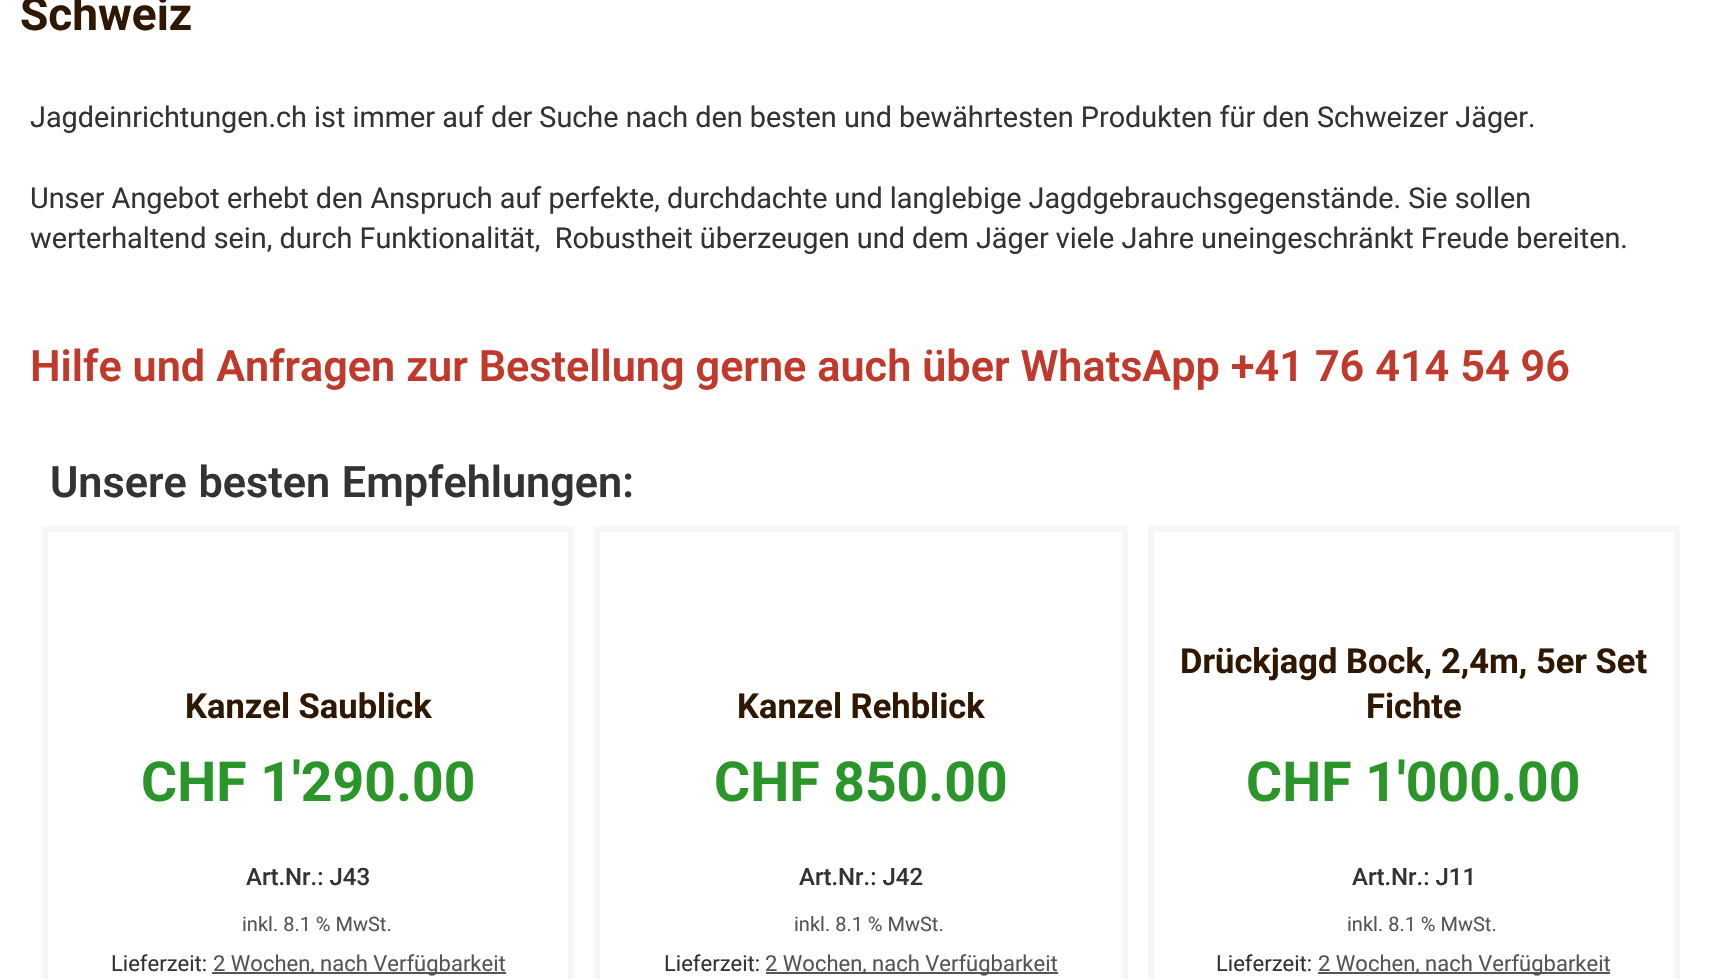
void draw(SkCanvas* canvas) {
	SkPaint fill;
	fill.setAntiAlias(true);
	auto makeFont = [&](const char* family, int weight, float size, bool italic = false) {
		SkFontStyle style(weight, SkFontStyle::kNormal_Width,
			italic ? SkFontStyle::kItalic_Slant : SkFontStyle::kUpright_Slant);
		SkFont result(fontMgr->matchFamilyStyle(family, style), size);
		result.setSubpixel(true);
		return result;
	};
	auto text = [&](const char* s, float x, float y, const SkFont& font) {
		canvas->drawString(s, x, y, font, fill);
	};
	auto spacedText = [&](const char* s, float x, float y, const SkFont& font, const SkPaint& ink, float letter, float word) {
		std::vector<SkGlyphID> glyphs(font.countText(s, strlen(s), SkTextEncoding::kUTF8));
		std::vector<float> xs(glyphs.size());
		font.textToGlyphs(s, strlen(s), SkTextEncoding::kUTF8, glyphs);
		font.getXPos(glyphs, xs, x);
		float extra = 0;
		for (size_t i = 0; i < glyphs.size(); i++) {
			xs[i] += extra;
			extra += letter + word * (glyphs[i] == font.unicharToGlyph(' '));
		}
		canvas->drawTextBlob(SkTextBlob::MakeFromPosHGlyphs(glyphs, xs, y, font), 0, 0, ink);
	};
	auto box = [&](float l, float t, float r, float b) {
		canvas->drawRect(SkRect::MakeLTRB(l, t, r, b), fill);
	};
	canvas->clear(0xFFFFFFFF);
	fill.setStyle(SkPaint::kStroke_Style);
	fill.setStrokeWidth(6);
	fill.setColor(0xFFF6F6F6);
	canvas->drawRect(SkRect::MakeLTRB(45, 529, 571, 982), fill);
	fill.setStyle(SkPaint::kFill_Style);
	fill.setColor(0xFF555555);
	box(212, 972, 506, 974);
	fill.setStyle(SkPaint::kStroke_Style);
	fill.setColor(0xFFF6F6F6);
	canvas->drawRect(SkRect::MakeLTRB(597, 529, 1125, 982), fill);
	fill.setStyle(SkPaint::kFill_Style);
	fill.setColor(0xFF555555);
	box(766, 972, 1058, 974);
	fill.setStyle(SkPaint::kStroke_Style);
	fill.setColor(0xFFF6F6F6);
	canvas->drawRect(SkRect::MakeLTRB(1151, 529, 1677, 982), fill);
	fill.setStyle(SkPaint::kFill_Style);
	fill.setColor(0xFF555555);
	box(1318, 972, 1610, 974);
	auto font1 = makeFont("Roboto", 700, 46);
	fill.setColor(0xFF301700);
	text("Schweiz", 20, 30, font1);
	auto font2 = makeFont("Roboto", 400, 28.8f);
	fill.setColor(0xFF333333);
	text("Jagdeinrichtungen.ch ist immer auf der Suche nach den besten und bewährtesten Produkten für den Schweizer Jäger.", 30, 127, font2);
	text("Unser Angebot erhebt den Anspruch auf perfekte, durchdachte und langlebige Jagdgebrauchsgegenstände. Sie sollen", 30, 208, font2);
	text("werterhaltend sein, durch Funktionalität,  Robustheit überzeugen und dem Jäger viele Jahre uneingeschränkt Freude bereiten.", 30, 248, font2);
	auto font3 = makeFont("Roboto", 600, 43.2f);
	fill.setColor(0xFFC0392B);
	spacedText("Hilfe und Anfragen zur Bestellung gerne auch über WhatsApp +41 76 414 54 96", 30, 381, font3, fill, 0, 0.25f);
	fill.setColor(0xFF333333);
	spacedText("Unsere besten Empfehlungen:", 50, 497, font3, fill, 0, 1);
	auto font4 = makeFont("Roboto", 700, 34.5f);
	fill.setColor(0xFF301700);
	text("Kanzel Saublick", 185, 718, font4);
	auto font5 = makeFont("Roboto", 700, 55.25f);
	fill.setColor(0xFF2A962A);
	text("CHF 1'290.00", 141, 801, font5);
	auto font6 = makeFont("Roboto", 500, 24);
	fill.setColor(0xFF333333);
	text("Art.Nr.: J43", 246, 885, font6);
	auto font7 = makeFont("Roboto", 400, 20);
	fill.setColor(0xFF555555);
	text("inkl. 8.1 % MwSt.", 242, 931, font7);
	auto font8 = makeFont("Roboto", 400, 22);
	fill.setColor(0xFF333333);
	text("Lieferzeit:", 111, 971, font8);
	fill.setColor(0xFF555555);
	text("2 Wochen, nach Verfügbarkeit", 213, 971, font8);
	fill.setColor(0xFF301700);
	text("Kanzel Rehblick", 737, 718, font4);
	fill.setColor(0xFF2A962A);
	text("CHF 850.00", 714, 801, font5);
	fill.setColor(0xFF333333);
	text("Art.Nr.: J42", 799, 885, font6);
	fill.setColor(0xFF555555);
	text("inkl. 8.1 % MwSt.", 794, 931, font7);
	fill.setColor(0xFF333333);
	text("Lieferzeit:", 664, 971, font8);
	fill.setColor(0xFF555555);
	text("2 Wochen, nach Verfügbarkeit", 765, 971, font8);
	fill.setColor(0xFF301700);
	text("Drückjagd Bock, 2,4m, 5er Set", 1180, 673, font4);
	text("Fichte", 1366, 718, font4);
	fill.setColor(0xFF2A962A);
	text("CHF 1'000.00", 1246, 801, font5);
	fill.setColor(0xFF333333);
	text("Art.Nr.: J11", 1352, 885, font6);
	fill.setColor(0xFF555555);
	text("inkl. 8.1 % MwSt.", 1347, 931, font7);
	fill.setColor(0xFF333333);
	text("Lieferzeit:", 1216, 971, font8);
	fill.setColor(0xFF555555);
	text("2 Wochen, nach Verfügbarkeit", 1318, 971, font8);
}
